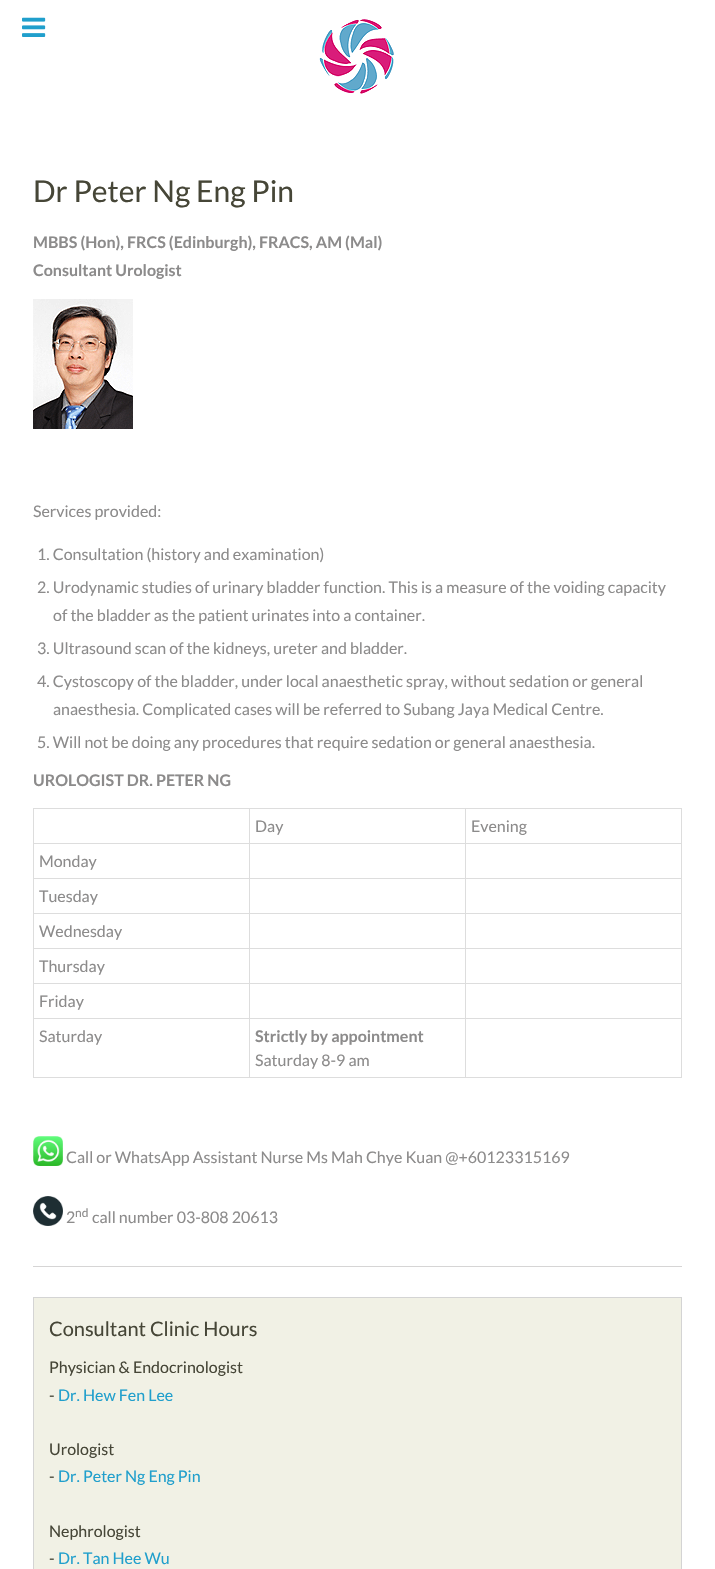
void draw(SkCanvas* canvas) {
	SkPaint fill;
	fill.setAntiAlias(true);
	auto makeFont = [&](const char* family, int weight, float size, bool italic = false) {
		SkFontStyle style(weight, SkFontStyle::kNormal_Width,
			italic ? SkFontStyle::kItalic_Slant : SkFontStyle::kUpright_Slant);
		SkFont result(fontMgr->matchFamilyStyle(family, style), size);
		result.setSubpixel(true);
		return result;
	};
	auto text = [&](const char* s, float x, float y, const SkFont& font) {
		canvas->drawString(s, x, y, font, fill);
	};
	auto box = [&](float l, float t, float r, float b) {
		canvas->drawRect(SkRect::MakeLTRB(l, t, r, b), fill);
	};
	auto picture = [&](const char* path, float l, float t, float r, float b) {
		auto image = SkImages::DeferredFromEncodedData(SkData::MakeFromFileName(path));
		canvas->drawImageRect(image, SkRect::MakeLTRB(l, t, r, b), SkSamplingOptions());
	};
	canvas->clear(0xFFFFFFFF);
	picture("image0.png", 22, 17, 46, 37);
	picture("image1.png", 319, 19, 394, 94);
	fill.setColor(0xFFD6D5D5);
	box(33, 1266, 682, 1267);
	picture("image2.png", 33, 299, 133, 429);
	fill.setColor(0xFFDDDDDD);
	box(33, 808, 682, 809);
	box(681, 808, 682, 1078);
	box(465, 843, 682, 844);
	box(465, 878, 682, 879);
	box(465, 913, 682, 914);
	box(465, 948, 682, 949);
	box(465, 983, 682, 984);
	box(465, 1018, 682, 1019);
	box(465, 1077, 682, 1078);
	box(465, 1018, 466, 1078);
	box(249, 1018, 466, 1019);
	box(465, 983, 466, 1019);
	box(249, 983, 466, 984);
	box(465, 948, 466, 984);
	box(249, 948, 466, 949);
	box(465, 913, 466, 949);
	box(249, 913, 466, 914);
	box(465, 878, 466, 914);
	box(249, 878, 466, 879);
	box(465, 843, 466, 879);
	box(249, 843, 466, 844);
	box(249, 1077, 466, 1078);
	box(249, 1018, 250, 1078);
	box(33, 1018, 250, 1019);
	box(249, 983, 250, 1019);
	box(33, 983, 250, 984);
	box(249, 948, 250, 984);
	box(33, 948, 250, 949);
	box(249, 913, 250, 949);
	box(33, 913, 250, 914);
	box(249, 878, 250, 914);
	box(33, 878, 250, 879);
	box(249, 843, 250, 879);
	box(33, 843, 250, 844);
	box(249, 808, 250, 844);
	box(465, 808, 466, 844);
	box(33, 1077, 250, 1078);
	box(33, 1018, 34, 1078);
	box(33, 983, 34, 1019);
	box(33, 948, 34, 984);
	box(33, 913, 34, 949);
	box(33, 878, 34, 914);
	box(33, 808, 34, 879);
	picture("image3.png", 33, 1136, 63, 1166);
	picture("image4.png", 33, 1196, 63, 1226);
	fill.setColor(0xFFF1F1E5);
	canvas->drawRect(SkRect::MakeLTRB(33.5f, 1297.5f, 681.5f, 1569.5f), fill);
	fill.setStyle(SkPaint::kStroke_Style);
	fill.setStrokeWidth(1);
	fill.setColor(0xFFD4D4D4);
	canvas->drawRect(SkRect::MakeLTRB(33.5f, 1297.5f, 681.5f, 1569.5f), fill);
	auto font1 = makeFont("Lato", 400, 30);
	fill.setStyle(SkPaint::kFill_Style);
	fill.setColor(0xFF464637);
	text("Dr Peter Ng Eng Pin", 33, 202, font1);
	auto font2 = makeFont("Lato", 700, 16);
	fill.setColor(0xFF8C8B8B);
	text("MBBS (Hon), FRCS (Edinburgh), FRACS, AM (Mal)", 33, 248, font2);
	text("Consultant Urologist", 33, 276, font2);
	auto font3 = makeFont("Lato", 400, 16);
	text("Services provided:", 33, 517, font3);
	text("1. Consultation (history and examination)", 37, 560, font3);
	text("2. Urodynamic studies of urinary bladder function. This is a measure of the voiding capacity", 37, 593, font3);
	text("of the bladder as the patient urinates into a container.", 53, 621, font3);
	text("3. Ultrasound scan of the kidneys, ureter and bladder.", 37, 654, font3);
	text("4. Cystoscopy of the bladder, under local anaesthetic spray, without sedation or general", 37, 687, font3);
	text("anaesthesia. Complicated cases will be referred to Subang Jaya Medical Centre.", 53, 715, font3);
	text("5. Will not be doing any procedures that require sedation or general anaesthesia.", 37, 748, font3);
	text("UROLOGIST DR. PETER NG", 33, 786, font2);
	text("Day", 255, 832, font3);
	text("Evening", 471, 832, font3);
	text("Monday", 39, 867, font3);
	text("Tuesday", 39, 902, font3);
	text("Wednesday", 39, 937, font3);
	text("Thursday", 39, 972, font3);
	text("Friday", 39, 1007, font3);
	text("Saturday", 39, 1042, font3);
	text("Strictly by appointment", 255, 1042, font2);
	text("Saturday 8-9 am", 255, 1066, font3);
	text("Call or WhatsApp Assistant Nurse Ms Mah Chye Kuan @+60123315169", 66, 1163, font3);
	text("2", 66, 1223, font3);
	auto font4 = makeFont("Lato", 400, 12);
	text("nd", 75, 1217, font4);
	text("call number 03-808 20613", 92, 1223, font3);
	auto font5 = makeFont("Lato", 400, 20);
	fill.setColor(0xFF464637);
	text("Consultant Clinic Hours", 49, 1336, font5);
	text("Physician & Endocrinologist", 49, 1373, font3);
	text("-", 49, 1401, font3);
	fill.setColor(0xFF209FCC);
	text("Dr. Hew Fen Lee", 58, 1401, font3);
	fill.setColor(0xFF464637);
	text("Urologist", 49, 1455, font3);
	text("-", 49, 1482, font3);
	fill.setColor(0xFF209FCC);
	text("Dr. Peter Ng Eng Pin", 58, 1482, font3);
	fill.setColor(0xFF464637);
	text("Nephrologist", 49, 1537, font3);
	text("-", 49, 1564, font3);
	fill.setColor(0xFF209FCC);
	text("Dr. Tan Hee Wu", 58, 1564, font3);
}
